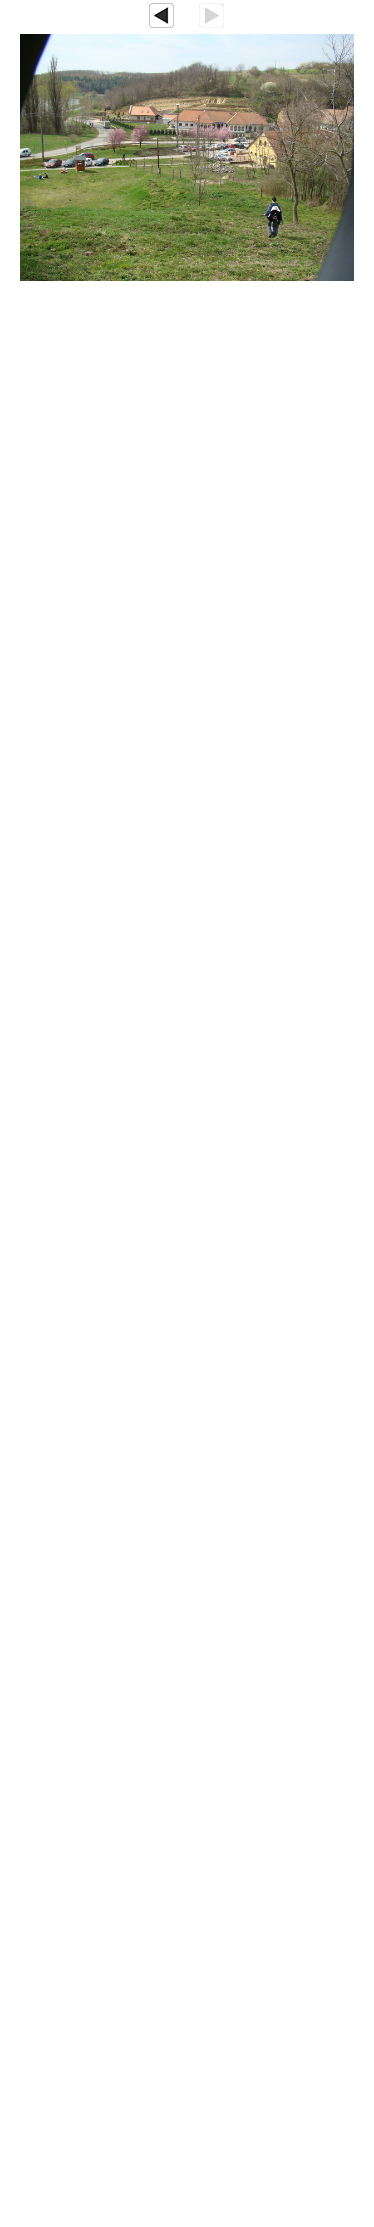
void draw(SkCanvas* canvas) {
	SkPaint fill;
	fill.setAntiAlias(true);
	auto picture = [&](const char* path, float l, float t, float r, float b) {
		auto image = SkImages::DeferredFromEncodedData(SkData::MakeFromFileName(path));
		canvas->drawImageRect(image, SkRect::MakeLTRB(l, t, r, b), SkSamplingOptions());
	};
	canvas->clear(0xFFFFFFFF);
	picture("image0.png", 149, 3, 174, 28);
	picture("image1.png", 199, 3, 224, 28);
	picture("image2.png", 20, 34, 354, 281);
}
